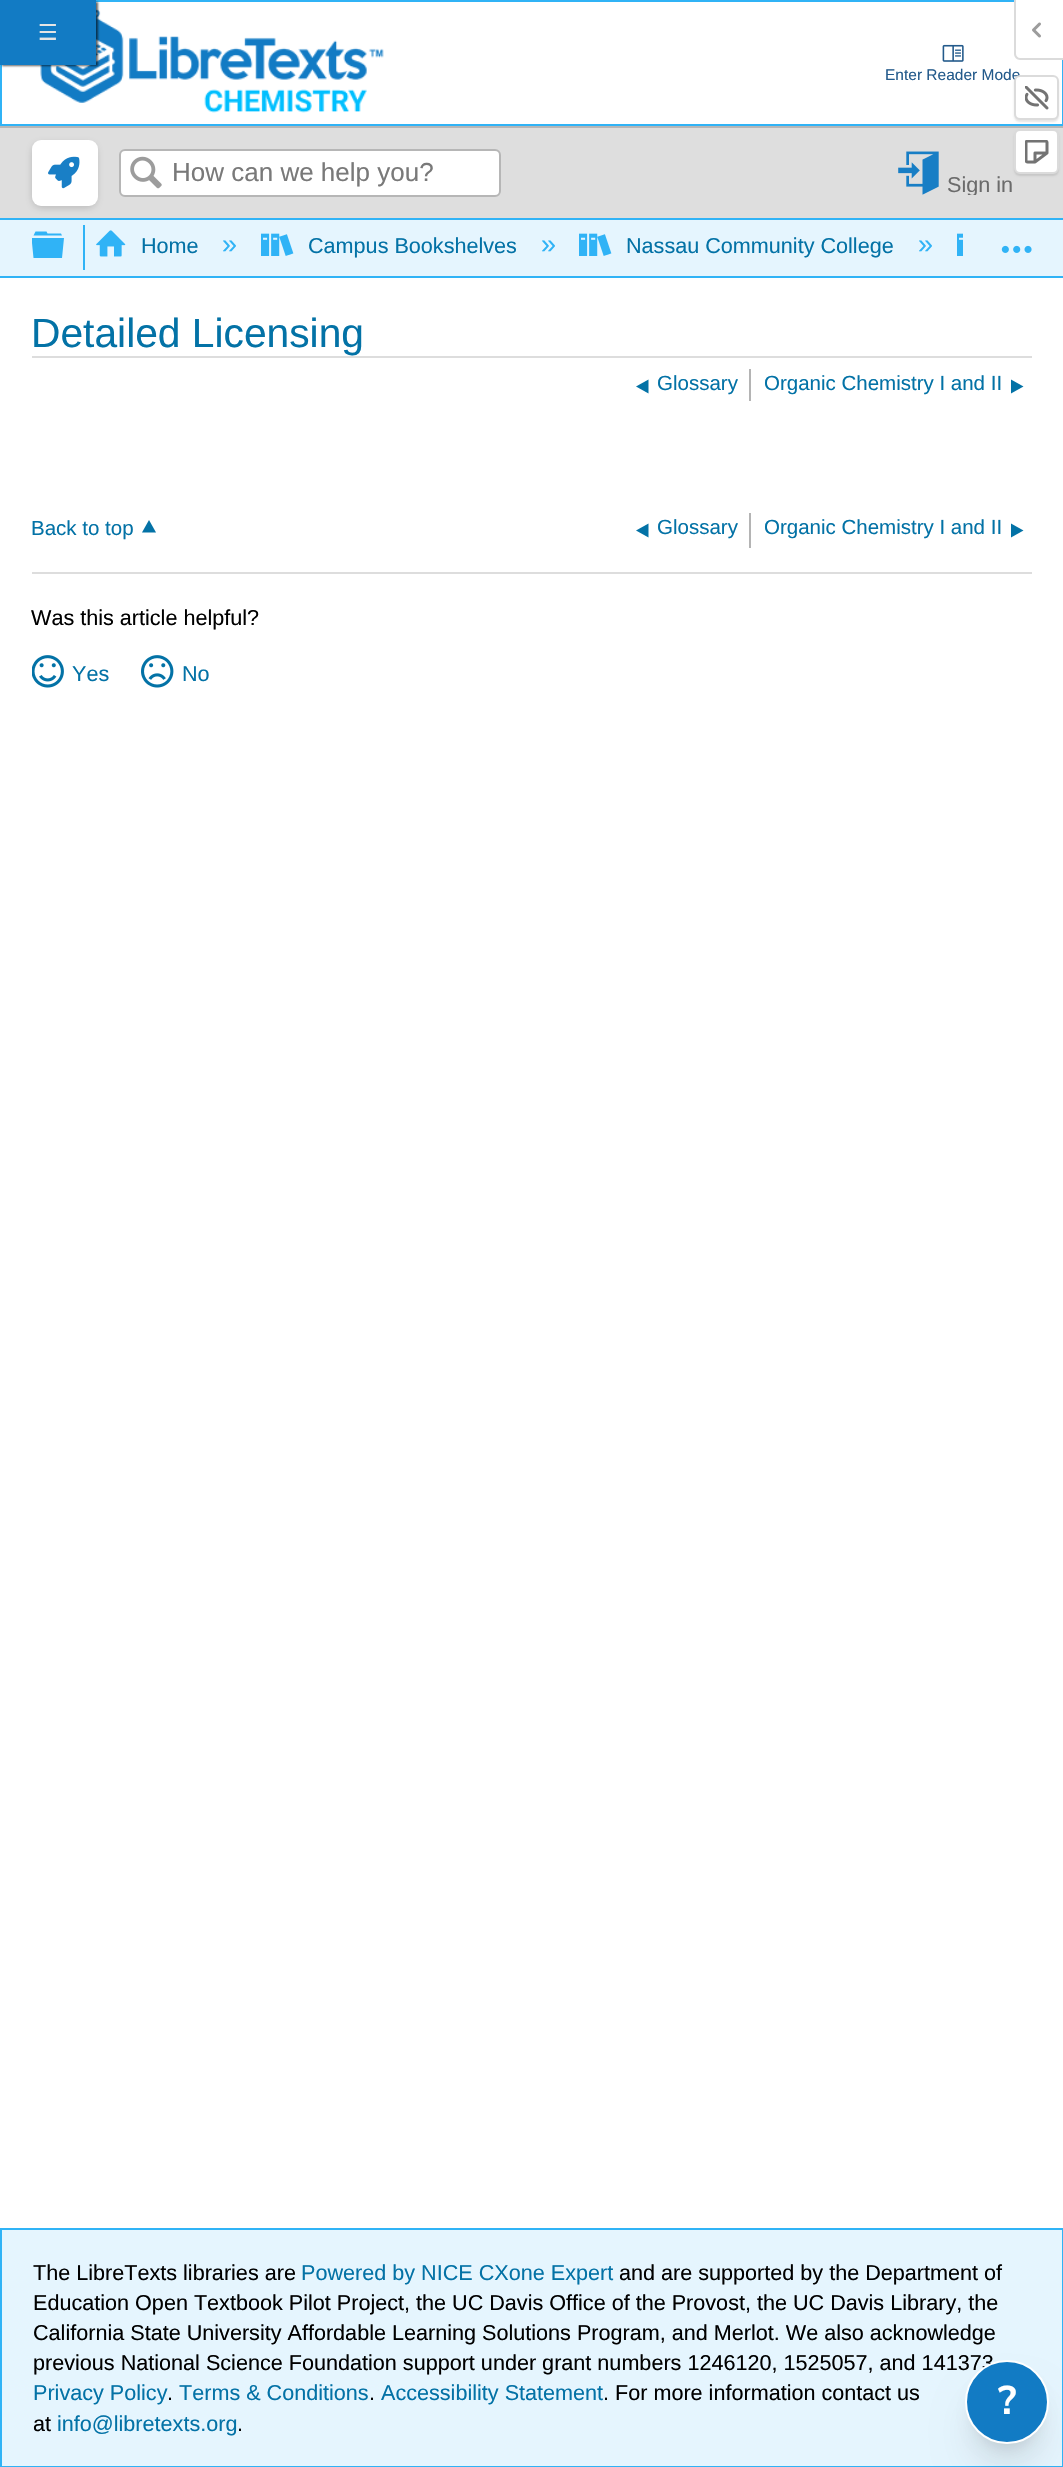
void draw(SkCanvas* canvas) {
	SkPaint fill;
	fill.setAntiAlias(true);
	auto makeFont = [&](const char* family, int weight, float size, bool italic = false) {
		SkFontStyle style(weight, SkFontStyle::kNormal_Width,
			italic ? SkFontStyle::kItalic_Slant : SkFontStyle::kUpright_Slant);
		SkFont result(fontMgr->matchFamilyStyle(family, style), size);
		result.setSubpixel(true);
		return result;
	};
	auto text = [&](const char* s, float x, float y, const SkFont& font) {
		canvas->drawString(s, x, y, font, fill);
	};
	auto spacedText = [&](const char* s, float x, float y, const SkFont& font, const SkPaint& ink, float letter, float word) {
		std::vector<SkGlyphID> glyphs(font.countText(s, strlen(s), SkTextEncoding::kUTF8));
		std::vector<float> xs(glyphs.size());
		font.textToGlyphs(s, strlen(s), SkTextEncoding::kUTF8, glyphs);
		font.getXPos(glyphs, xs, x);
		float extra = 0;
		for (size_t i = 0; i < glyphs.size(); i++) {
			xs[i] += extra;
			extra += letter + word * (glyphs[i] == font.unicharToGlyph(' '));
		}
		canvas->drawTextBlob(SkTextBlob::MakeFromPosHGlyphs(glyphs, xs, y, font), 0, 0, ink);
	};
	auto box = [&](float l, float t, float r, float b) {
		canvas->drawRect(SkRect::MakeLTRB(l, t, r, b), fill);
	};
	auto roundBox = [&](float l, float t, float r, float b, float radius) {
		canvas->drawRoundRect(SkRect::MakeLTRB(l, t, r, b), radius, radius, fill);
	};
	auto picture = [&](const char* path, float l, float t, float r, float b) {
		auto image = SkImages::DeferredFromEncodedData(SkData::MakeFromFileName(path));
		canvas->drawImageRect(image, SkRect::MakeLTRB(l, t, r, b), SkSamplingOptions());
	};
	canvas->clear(0xFFFFFFFF);
	fill.setStyle(SkPaint::kStroke_Style);
	fill.setStrokeWidth(2);
	fill.setColor(0xFF30B3F6);
	canvas->drawRect(SkRect::MakeLTRB(1, 1, 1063, 125), fill);
	picture("image3.png", 40, 9, 384, 113);
	fill.setStyle(SkPaint::kFill_Style);
	fill.setColor(0x99000000);
	fill.setMaskFilter(SkMaskFilter::MakeBlur(kNormal_SkBlurStyle, 1));
	canvas->drawRect(SkRect::MakeLTRB(2, 2, 98, 66), fill);
	fill.setMaskFilter(nullptr);
	fill.setColor(0xFF127BC4);
	box(0, 0, 96, 65);
	fill.setColor(0xFFFFFFFF);
	canvas->drawPath(SkPathBuilder().moveTo(1016, 0).lineTo(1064, 0).lineTo(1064, 59).lineTo(1021, 59).cubicTo(1018, 59, 1016, 57, 1016, 54).close().detach(), fill);
	fill.setColor(0xFFDBDBDB);
	canvas->drawPath(SkPathBuilder(SkPathFillType::kEvenOdd).moveTo(1014, 0).lineTo(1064, 0).lineTo(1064, 60).lineTo(1020, 60).cubicTo(1017, 60, 1014, 57, 1014, 54).close().moveTo(1016, 0).lineTo(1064, 0).lineTo(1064, 58).lineTo(1020, 58).cubicTo(1018, 58, 1016, 56, 1016, 54).close().detach(), fill);
	picture("image0.png", 1032, 22, 1041, 38);
	fill.setColor(0x1A000000);
	fill.setMaskFilter(SkMaskFilter::MakeBlur(kNormal_SkBlurStyle, 1));
	canvas->drawRoundRect(SkRect::MakeLTRB(1014, 77, 1059, 122), 6, 6, fill);
	fill.setMaskFilter(nullptr);
	fill.setColor(0xFFDEDEDE);
	box(0, 128, 1063, 218);
	fill.setColor(0xFFB6B6B6);
	box(0, 126, 1063, 128);
	fill.setColor(0x1A000000);
	fill.setMaskFilter(SkMaskFilter::MakeBlur(kNormal_SkBlurStyle, 1));
	canvas->drawRoundRect(SkRect::MakeLTRB(1014, 131, 1059, 176), 6, 6, fill);
	fill.setMaskFilter(nullptr);
	fill.setColor(0xFFFFFFFF);
	canvas->drawRoundRect(SkRect::MakeLTRB(1015, 130, 1058, 173), 5, 5, fill);
	fill.setStyle(SkPaint::kStroke_Style);
	fill.setColor(0xFFDBDBDB);
	canvas->drawRoundRect(SkRect::MakeLTRB(1015, 130, 1058, 173), 5, 5, fill);
	picture("image2.png", 1025, 140, 1049, 164);
	picture("image4.png", 942, 44, 964, 62);
	fill.setStyle(SkPaint::kFill_Style);
	fill.setColor(0xFF30B3F6);
	box(0, 218, 1063, 220);
	fill.setColor(0x33080808);
	fill.setMaskFilter(SkMaskFilter::MakeBlur(kNormal_SkBlurStyle, 4));
	canvas->drawRoundRect(SkRect::MakeLTRB(33, 144, 96, 207), 8, 8, fill);
	fill.setMaskFilter(nullptr);
	fill.setColor(0xFFFFFFFF);
	roundBox(32, 140, 98, 206, 9);
	picture("image5.png", 48, 156, 80, 189);
	canvas->drawRoundRect(SkRect::MakeLTRB(120, 150, 500, 196), 5, 5, fill);
	fill.setStyle(SkPaint::kStroke_Style);
	fill.setColor(0xFFB6B6B6);
	canvas->drawRoundRect(SkRect::MakeLTRB(120, 150, 500, 196), 5, 5, fill);
	picture("image6.png", 130, 156, 162, 189);
	picture("image7.png", 898, 151, 939, 195);
	fill.setStyle(SkPaint::kFill_Style);
	fill.setColor(0xFFE5F5FE);
	box(0, 220, 1063, 276);
	fill.setColor(0xFF30B3F6);
	box(0, 276, 1063, 278);
	canvas->drawPath(SkPathBuilder(SkPathFillType::kEvenOdd).moveTo(32, 243).lineTo(32, 238).lineTo(64, 238).lineTo(62, 258).lineTo(33.5f, 258).close().moveTo(61, 233.5f).lineTo(47.5f, 233.5f).lineTo(46.5f, 231.5f).lineTo(35.5f, 231.5f).lineTo(33.5f, 235.5f).lineTo(62, 235.5f).close().detach(), fill);
	box(83, 225, 85, 270);
	picture("image8.png", 96, 230, 126, 257);
	picture("image9.png", 261, 233, 294, 256);
	picture("image9.png", 579, 233, 612, 256);
	picture("image10.png", 957, 233, 963, 256);
	picture("image11.png", 1001, 245, 1032, 253);
	fill.setColor(0xFFDDDDDD);
	box(32, 356, 1032, 358);
	fill.setColor(0xFFB4B4B4);
	box(749, 369, 751, 401);
	fill.setColor(0xFF0372A6);
	canvas->drawPath(SkPathBuilder().moveTo(648.5f, 379.5f).lineTo(648.5f, 393.5f).lineTo(636, 386.5f).close().detach(), fill);
	canvas->drawPath(SkPathBuilder().moveTo(1011, 379.5f).lineTo(1011, 393.5f).lineTo(1023.5f, 386.5f).close().detach(), fill);
	fill.setColor(0xFFDDDDDD);
	box(32, 572, 1032, 574);
	fill.setColor(0xFF0372A6);
	canvas->drawPath(SkPathBuilder().moveTo(142, 532.5f).lineTo(156, 532.5f).lineTo(149, 520).close().detach(), fill);
	fill.setColor(0xFFB4B4B4);
	box(749, 513, 751, 548);
	fill.setColor(0xFF0372A6);
	canvas->drawPath(SkPathBuilder().moveTo(648.5f, 523.5f).lineTo(648.5f, 537.5f).lineTo(636, 530.5f).close().detach(), fill);
	canvas->drawPath(SkPathBuilder().moveTo(1011, 523.5f).lineTo(1011, 537.5f).lineTo(1023.5f, 530.5f).close().detach(), fill);
	picture("image12.png", 32, 655, 64, 688);
	picture("image13.png", 141, 655, 174, 688);
	fill.setColor(0xFFE5F5FE);
	canvas->drawRect(SkRect::MakeLTRB(1, 2229, 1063, 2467), fill);
	fill.setStyle(SkPaint::kStroke_Style);
	fill.setColor(0xFF30B3F6);
	canvas->drawRect(SkRect::MakeLTRB(1, 2229, 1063, 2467), fill);
	fill.setStyle(SkPaint::kFill_Style);
	fill.setColor(0x1A000000);
	fill.setMaskFilter(SkMaskFilter::MakeBlur(kNormal_SkBlurStyle, 7.5f));
	canvas->drawRoundRect(SkRect::MakeLTRB(974, 2381, 1040, 2447), 33, 33, fill);
	fill.setMaskFilter(nullptr);
	fill.setMaskFilter(SkMaskFilter::MakeBlur(kNormal_SkBlurStyle, 19));
	canvas->drawRoundRect(SkRect::MakeLTRB(972, 2397, 1041, 2466), 34.5f, 34.5f, fill);
	fill.setMaskFilter(nullptr);
	auto font1 = makeFont("DejaVu Sans", 400, 22);
	fill.setColor(0xFFE5E5E5);
	spacedText("☰", 38, 40, font1, fill, 1, 0);
	auto font2 = makeFont("Liberation Sans", 400, 15.5f);
	fill.setColor(0xFF235A8B);
	text("Enter Reader Mode", 885, 80, font2);
	fill.setColor(0xFFFFFFFF);
	canvas->drawRoundRect(SkRect::MakeLTRB(1015, 76, 1058, 119), 5, 5, fill);
	fill.setStyle(SkPaint::kStroke_Style);
	fill.setColor(0xFFDBDBDB);
	canvas->drawRoundRect(SkRect::MakeLTRB(1015, 76, 1058, 119), 5, 5, fill);
	picture("image1.png", 1025, 86, 1049, 110);
	auto font3 = makeFont("Liberation Sans", 400, 26);
	fill.setStyle(SkPaint::kFill_Style);
	fill.setColor(0xFF797979);
	text("How can we help you?", 172, 181, font3);
	canvas->save();
	canvas->clipRect(SkRect::MakeLTRB(896, 150, 1022, 195));
	auto font4 = makeFont("Liberation Sans", 400, 21.6f);
	fill.setColor(0xFF6B6B6B);
	text("Sign in", 947, 192, font4);
	canvas->restore();
	fill.setColor(0xFF0372A6);
	text("Home", 141, 253, font4);
	auto font5 = makeFont("Liberation Sans", 400, 27);
	fill.setColor(0xFF30B3F6);
	text("»", 222, 253, font5);
	fill.setColor(0xFF0372A6);
	text("Campus Bookshelves", 308, 253, font4);
	fill.setColor(0xFF30B3F6);
	text("»", 541, 253, font5);
	fill.setColor(0xFF0372A6);
	text("Nassau Community College", 626, 253, font4);
	fill.setColor(0xFF30B3F6);
	text("»", 918, 253, font5);
	auto font6 = makeFont("Liberation Sans", 400, 40.75f);
	fill.setColor(0xFF0372A6);
	text("Detailed Licensing", 31, 347, font6);
	auto font7 = makeFont("Liberation Sans", 400, 20.5f);
	text("Glossary", 657, 390, font7);
	text("Organic Chemistry I and II", 764, 390, font7);
	text("Back to top", 31, 535, font7);
	text("Glossary", 657, 534, font7);
	text("Organic Chemistry I and II", 764, 534, font7);
	fill.setColor(0xFF000000);
	text("Was this article helpful?", 31, 625, font4);
	fill.setColor(0xFF0372A6);
	text("Yes", 72, 681, font4);
	text("No", 182, 681, font4);
	fill.setColor(0xFF000000);
	text("The LibreTexts libraries are", 33, 2280, font4);
	fill.setColor(0xFF0372A6);
	text("Powered by NICE CXone Expert", 301, 2280, font4);
	fill.setColor(0xFF000000);
	text("and are supported by the Department of", 619, 2280, font4);
	text("Education Open Textbook Pilot Project, the UC Davis Office of the Provost, the UC Davis Library, the", 33, 2310, font4);
	text("California State University Affordable Learning Solutions Program, and Merlot. We also acknowledge", 33, 2340, font4);
	text("previous National Science Foundation support under grant numbers 1246120, 1525057, and 141373", 33, 2370, font4);
	fill.setColor(0xFF0372A6);
	text("Privacy Policy", 33, 2400, font4);
	fill.setColor(0xFF000000);
	text(".", 167, 2400, font4);
	fill.setColor(0xFF0372A6);
	text("Terms & Conditions", 179, 2400, font4);
	fill.setColor(0xFF000000);
	text(".", 369, 2400, font4);
	fill.setColor(0xFF0372A6);
	text("Accessibility Statement", 381, 2400, font4);
	fill.setColor(0xFF000000);
	text(". For more information contact us", 603, 2400, font4);
	text("at", 33, 2431, font4);
	fill.setColor(0xFF0372A6);
	text("info@libretexts.org", 57, 2431, font4);
	fill.setColor(0xFF000000);
	text(".", 237, 2431, font4);
	fill.setColor(0xFF127BC4);
	canvas->drawCircle(1007, 2402, 41, fill);
	fill.setStyle(SkPaint::kStroke_Style);
	fill.setColor(0xFFFFFFFF);
	canvas->drawCircle(1007, 2402, 41, fill);
	auto font8 = makeFont("Nunito Sans", 700, 40);
	fill.setStyle(SkPaint::kFill_Style);
	text("?", 998, 2414, font8);
}
